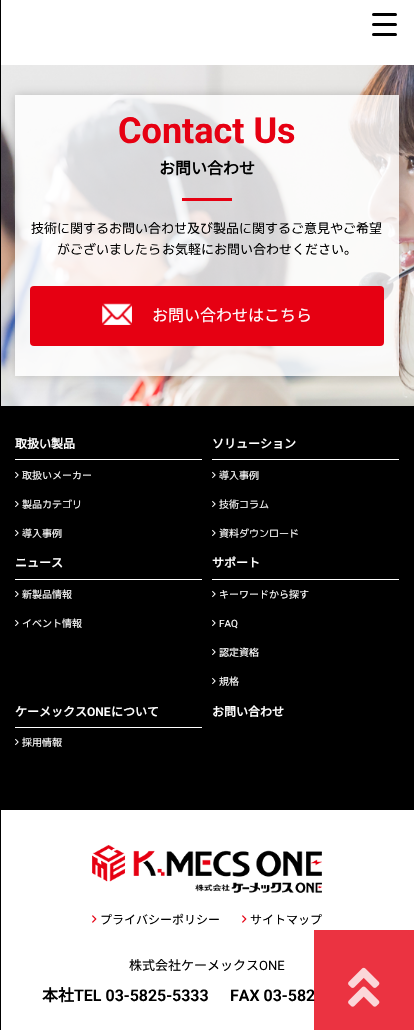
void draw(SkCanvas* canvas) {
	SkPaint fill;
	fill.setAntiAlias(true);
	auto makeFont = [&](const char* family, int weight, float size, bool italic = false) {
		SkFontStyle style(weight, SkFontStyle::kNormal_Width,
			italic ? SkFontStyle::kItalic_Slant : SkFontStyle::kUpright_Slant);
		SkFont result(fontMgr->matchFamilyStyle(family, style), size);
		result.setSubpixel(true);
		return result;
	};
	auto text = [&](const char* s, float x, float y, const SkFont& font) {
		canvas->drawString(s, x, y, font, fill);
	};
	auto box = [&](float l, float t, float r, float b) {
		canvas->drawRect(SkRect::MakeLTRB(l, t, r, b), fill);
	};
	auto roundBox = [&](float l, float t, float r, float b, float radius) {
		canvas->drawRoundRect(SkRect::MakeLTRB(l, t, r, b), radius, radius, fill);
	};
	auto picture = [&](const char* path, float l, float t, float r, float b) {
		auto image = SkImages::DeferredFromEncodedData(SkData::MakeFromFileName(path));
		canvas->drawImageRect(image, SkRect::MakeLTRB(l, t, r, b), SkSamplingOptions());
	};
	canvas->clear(0xFFFFFFFF);
	picture("image0.png", 1, 65, 414, 406);
	canvas->save();
	canvas->clipPath(SkPathBuilder(SkPathFillType::kEvenOdd).moveTo(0, 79).lineTo(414, 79).lineTo(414, 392).lineTo(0, 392).close().moveTo(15, 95).lineTo(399, 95).lineTo(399, 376).lineTo(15, 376).close().detach(), true);
	fill.setColor(0x33000000);
	fill.setMaskFilter(SkMaskFilter::MakeBlur(kNormal_SkBlurStyle, 5));
	canvas->drawRect(SkRect::MakeLTRB(15, 95, 399, 376), fill);
	fill.setMaskFilter(nullptr);
	canvas->restore();
	fill.setColor(0xFF000000);
	box(0, 0, 1, 1030);
	roundBox(372, 23, 397, 26, 1.5f);
	roundBox(372, 13, 397, 16, 1.5f);
	roundBox(372, 33, 397, 36, 1.5f);
	fill.setColor(0xCCFFFFFF);
	box(15, 95, 399, 376);
	fill.setColor(0xFFE60012);
	box(182, 198, 232, 201);
	roundBox(30, 286, 384, 346, 4);
	picture("image1.png", 102, 303, 132, 325);
	fill.setColor(0xFF000000);
	box(1, 406, 414, 810);
	fill.setColor(0xFFFFFFFF);
	box(15, 459, 202, 460);
	picture("image2.png", 15, 471, 19, 479);
	picture("image2.png", 15, 500, 19, 508);
	picture("image2.png", 15, 529, 19, 537);
	box(212, 459, 399, 460);
	picture("image2.png", 212, 471, 216, 479);
	picture("image2.png", 212, 500, 216, 508);
	picture("image2.png", 212, 529, 216, 537);
	box(15, 579, 202, 580);
	picture("image2.png", 15, 590, 19, 598);
	picture("image2.png", 15, 619, 19, 627);
	box(212, 579, 399, 580);
	picture("image2.png", 212, 590, 216, 598);
	picture("image2.png", 212, 619, 216, 627);
	picture("image2.png", 212, 648, 216, 656);
	picture("image2.png", 212, 677, 216, 685);
	box(15, 727, 202, 728);
	picture("image2.png", 15, 738, 19, 746);
	picture("image3.png", 92, 845, 322, 893);
	picture("image4.png", 92, 915, 97, 923);
	picture("image4.png", 242, 915, 247, 923);
	auto font1 = makeFont("Roboto", 700, 36);
	fill.setColor(0xFFE60012);
	text("Contact Us", 118, 143, font1);
	auto font2 = makeFont("Noto Sans JP", 700, 16);
	fill.setColor(0xFF000000);
	text("お問い合わせ", 159, 174, font2);
	auto font3 = makeFont("Noto Sans JP", 100, 13);
	text("技術", 31, 233, font3);
	auto font4 = makeFont("M PLUS 1p", 400, 13);
	text("に", 57, 233, font4);
	text("関", 70, 233, font3);
	text("するお", 83, 233, font4);
	text("問", 122, 233, font3);
	text("い", 135, 233, font4);
	text("合", 148, 233, font3);
	text("わせ", 161, 233, font4);
	text("及", 187, 233, font3);
	text("び", 200, 233, font4);
	text("製品", 213, 233, font3);
	text("に", 239, 233, font4);
	text("関", 252, 233, font3);
	text("するご", 265, 233, font4);
	text("意見", 304, 233, font3);
	text("やご", 330, 233, font4);
	text("希望", 356, 233, font3);
	text("がございましたら", 57, 254, font4);
	text("お気軽にお問い合わせください。", 162, 254, font3);
	auto font5 = makeFont("Noto Sans JP", 100, 16);
	fill.setColor(0xFFFFFFFF);
	text("お問い合わせはこちら", 152, 321, font5);
	auto font6 = makeFont("Noto Sans JP", 700, 12);
	text("取扱", 15, 448, font6);
	auto font7 = makeFont("M PLUS 1p", 700, 12);
	text("い", 39, 448, font7);
	text("製品", 51, 448, font6);
	auto font8 = makeFont("Noto Sans JP", 100, 10);
	text("取扱いメーカー", 22, 479, font8);
	text("製品", 22, 508, font8);
	auto font9 = makeFont("M PLUS 1p", 400, 10);
	text("カテゴリ", 42, 508, font9);
	text("導", 22, 537, font8);
	text("入事例", 32, 537, font9);
	text("ソリューション", 212, 448, font6);
	text("導", 219, 479, font8);
	text("入事例", 229, 479, font9);
	text("技術", 219, 508, font8);
	text("コラム", 239, 508, font9);
	text("資料", 219, 537, font8);
	text("ダウンロード", 239, 537, font9);
	text("ニュース", 15, 567, font6);
	text("新製品情報", 22, 598, font8);
	text("イベント情報", 22, 627, font8);
	text("サポート", 212, 567, font6);
	text("キーワードから探す", 219, 598, font8);
	auto font10 = makeFont("Roboto", 400, 10);
	text("FAQ", 219, 627, font10);
	text("認定", 219, 656, font9);
	text("資", 239, 656, font8);
	text("格", 249, 656, font9);
	text("規格", 219, 685, font8);
	text("ケーメックス", 15, 716, font6);
	auto font11 = makeFont("Roboto", 600, 12);
	text("ONE", 87, 716, font11);
	text("について", 111, 716, font6);
	text("採", 22, 746, font8);
	text("用情報", 32, 746, font9);
	text("お問い合わせ", 212, 716, font6);
	auto font12 = makeFont("Noto Sans JP", 100, 12);
	fill.setColor(0xFF000000);
	text("プライバシーポリシー", 100, 924, font12);
	text("サイトマップ", 250, 924, font12);
	text("株式会社ケーメックス", 129, 970, font3);
	auto font13 = makeFont("Roboto", 400, 13);
	text("ONE", 259, 970, font13);
	text("本社", 42, 1001, font2);
	auto font14 = makeFont("Roboto", 600, 16);
	text("TEL 03-5825-5333", 74, 1001, font14);
	text("FAX 03-582", 230, 1001, font14);
	fill.setColor(0xCCE60012);
	box(314, 930, 414, 1030);
	picture("image5.png", 348, 967, 380, 1007);
}
